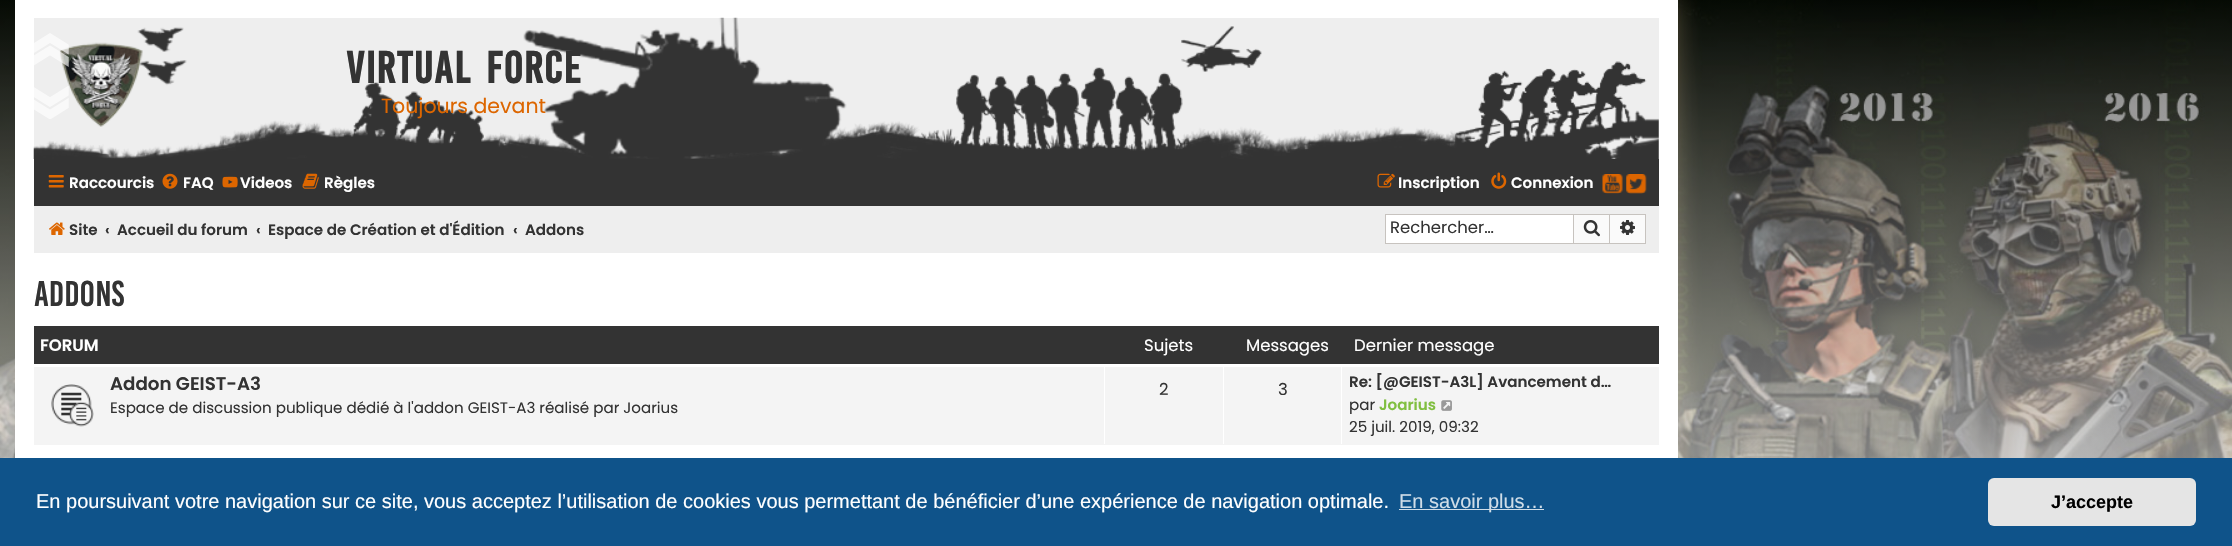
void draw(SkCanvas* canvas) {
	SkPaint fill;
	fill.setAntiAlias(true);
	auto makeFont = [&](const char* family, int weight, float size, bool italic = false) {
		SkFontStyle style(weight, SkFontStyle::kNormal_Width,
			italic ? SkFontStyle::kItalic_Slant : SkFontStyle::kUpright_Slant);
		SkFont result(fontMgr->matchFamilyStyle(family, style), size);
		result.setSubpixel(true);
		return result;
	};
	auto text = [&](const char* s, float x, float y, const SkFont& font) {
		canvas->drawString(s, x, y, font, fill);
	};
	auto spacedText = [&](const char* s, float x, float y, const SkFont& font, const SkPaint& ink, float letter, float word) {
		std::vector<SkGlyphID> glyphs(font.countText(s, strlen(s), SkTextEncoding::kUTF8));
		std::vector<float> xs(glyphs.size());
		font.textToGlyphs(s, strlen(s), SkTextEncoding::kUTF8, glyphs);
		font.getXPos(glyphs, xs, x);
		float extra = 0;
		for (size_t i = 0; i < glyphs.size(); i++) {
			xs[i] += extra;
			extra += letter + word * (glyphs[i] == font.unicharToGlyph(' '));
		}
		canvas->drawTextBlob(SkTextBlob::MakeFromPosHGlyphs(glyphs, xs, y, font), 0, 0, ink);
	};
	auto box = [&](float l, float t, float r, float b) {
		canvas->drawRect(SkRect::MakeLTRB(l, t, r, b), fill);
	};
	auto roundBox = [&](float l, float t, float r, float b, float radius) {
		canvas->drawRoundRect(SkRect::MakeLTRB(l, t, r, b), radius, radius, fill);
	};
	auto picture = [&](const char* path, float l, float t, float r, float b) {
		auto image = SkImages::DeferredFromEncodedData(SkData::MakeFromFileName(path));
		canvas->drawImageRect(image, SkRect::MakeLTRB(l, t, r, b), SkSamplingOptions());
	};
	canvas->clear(0xFFFFFFFF);
	picture("image0.png", 0, 0, 2232, 458);
	fill.setColor(0xFFFFFFFF);
	box(15, 0, 1678, 458);
	fill.setColor(0xFFEEEEEE);
	box(34, 18, 1659, 159);
	picture("image3.png", 33, 17, 1659, 159);
	picture("image4.png", 59, 42, 143, 127);
	picture("image1.png", 34, 33, 69, 67);
	picture("image2.png", 34, 86, 69, 119);
	fill.setColor(0xFF333333);
	box(34, 159, 1659, 206);
	picture("image5.png", 48, 175, 64, 188);
	picture("image6.png", 162, 173, 178, 189);
	picture("image7.png", 222, 176, 238, 188);
	picture("image8.png", 302, 173, 319, 189);
	picture("image9.png", 1377, 173, 1395, 188);
	picture("image10.png", 1491, 172, 1507, 189);
	picture("image11.png", 1602, 174, 1623, 194);
	picture("image12.png", 1626, 174, 1647, 194);
	fill.setColor(0xFFEEEEEE);
	box(34, 206, 1659, 253);
	picture("image13.png", 49, 222, 65, 235);
	fill.setColor(0xFFFFFFFF);
	box(1386, 215, 1573, 243);
	fill.setColor(0xFFC7C3BF);
	box(1385, 214, 1573, 215);
	box(1385, 243, 1573, 244);
	box(1385, 214, 1386, 244);
	fill.setColor(0xFFFAFAFA);
	canvas->drawRect(SkRect::MakeLTRB(1573.5f, 214.5f, 1609.5f, 243.5f), fill);
	fill.setStyle(SkPaint::kStroke_Style);
	fill.setStrokeWidth(1);
	fill.setColor(0xFFC7C3BF);
	canvas->drawRect(SkRect::MakeLTRB(1573.5f, 214.5f, 1609.5f, 243.5f), fill);
	picture("image14.png", 1583, 220, 1600, 237);
	fill.setStyle(SkPaint::kFill_Style);
	fill.setColor(0xFFFAFAFA);
	box(1610, 215, 1645, 243);
	fill.setColor(0xFFC7C3BF);
	box(1610, 214, 1646, 215);
	box(1645, 214, 1646, 244);
	box(1610, 243, 1646, 244);
	picture("image15.png", 1620, 220, 1635, 235);
	fill.setColor(0xFF333333);
	box(34, 326, 1659, 364);
	fill.setColor(0xFFF4F4F4);
	box(34, 367, 1659, 445);
	picture("image16.png", 51, 384, 94, 427);
	fill.setColor(0xFFFFFFFF);
	box(1104, 366, 1105, 444);
	box(1223, 366, 1224, 444);
	box(1341, 366, 1342, 444);
	picture("image17.png", 1441, 400, 1452, 411);
	fill.setColor(0xFF0F538A);
	box(0, 458, 2232, 546);
	fill.setColor(0xFFCFDDE8);
	box(1399, 509, 1544, 510);
	fill.setColor(0xFFE5E5E5);
	roundBox(1988, 478, 2196, 526, 6);
	auto font1 = makeFont("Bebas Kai", 700, 34.5f);
	fill.setColor(0xFF333333);
	spacedText("Virtual Force", 346, 83, font1, fill, 1.25f, 5);
	auto font2 = makeFont("Poppins", 400, 20.5f);
	fill.setColor(0xFFDD6600);
	text("Toujours devant", 381, 113, font2);
	auto font3 = makeFont("Poppins", 600, 15.1f);
	fill.setColor(0xFFFFFFFF);
	text("Raccourcis", 69, 188, font3);
	text("FAQ", 183, 188, font3);
	text("Videos", 240, 188, font3);
	text("Règles", 324, 188, font3);
	text("Inscription", 1398, 188, font3);
	text("Connexion", 1511, 188, font3);
	fill.setColor(0xFF333333);
	text("Site", 69, 235, font3);
	text("‹", 105, 235, font3);
	text("Accueil du forum", 117, 235, font3);
	text("‹", 256, 235, font3);
	text("Espace de Création et d'Édition", 268, 235, font3);
	text("‹", 513, 235, font3);
	text("Addons", 525, 235, font3);
	auto font4 = makeFont("Poppins", 400, 16.5f);
	text("Rechercher…", 1390, 233, font4);
	auto font5 = makeFont("Bebas Kai", 400, 27.5f);
	text("Addons", 34, 306, font5);
	auto font6 = makeFont("Poppins", 600, 16.5f);
	fill.setColor(0xFFFFFFFF);
	text("FORUM", 40, 351, font6);
	text("Sujets", 1144, 351, font4);
	text("Messages", 1246, 351, font4);
	text("Dernier message", 1354, 351, font4);
	auto font7 = makeFont("Poppins", 600, 18.25f);
	fill.setColor(0xFF333333);
	text("Addon GEIST-A3", 110, 390, font7);
	auto font8 = makeFont("Poppins", 400, 15.1f);
	text("Espace de discussion publique dédié à l'addon GEIST-A3 réalisé par Joarius", 110, 413, font8);
	text("2", 1159, 395, font4);
	text("3", 1278, 395, font4);
	text("Re: [@GEIST-A3L] Avancement d…", 1349, 387, font3);
	text("par", 1349, 410, font8);
	fill.setColor(0xFF80BF40);
	text("Joarius", 1379, 410, font3);
	fill.setColor(0xFF333333);
	text("25 juil. 2019, 09:32", 1349, 432, font8);
	auto font9 = makeFont("Liberation Sans", 400, 20);
	fill.setColor(0xFFFFFFFF);
	text("En poursuivant votre navigation sur ce site, vous acceptez l’utilisation de cookies vous permettant de bénéficier d’une expérience de navigation optimale.", 36, 508, font9);
	fill.setColor(0xFFCFDDE8);
	text("En savoir plus…", 1399, 508, font9);
	auto font10 = makeFont("Liberation Sans", 700, 18);
	fill.setColor(0xFF000000);
	text("J’accepte", 2051, 508, font10);
}
